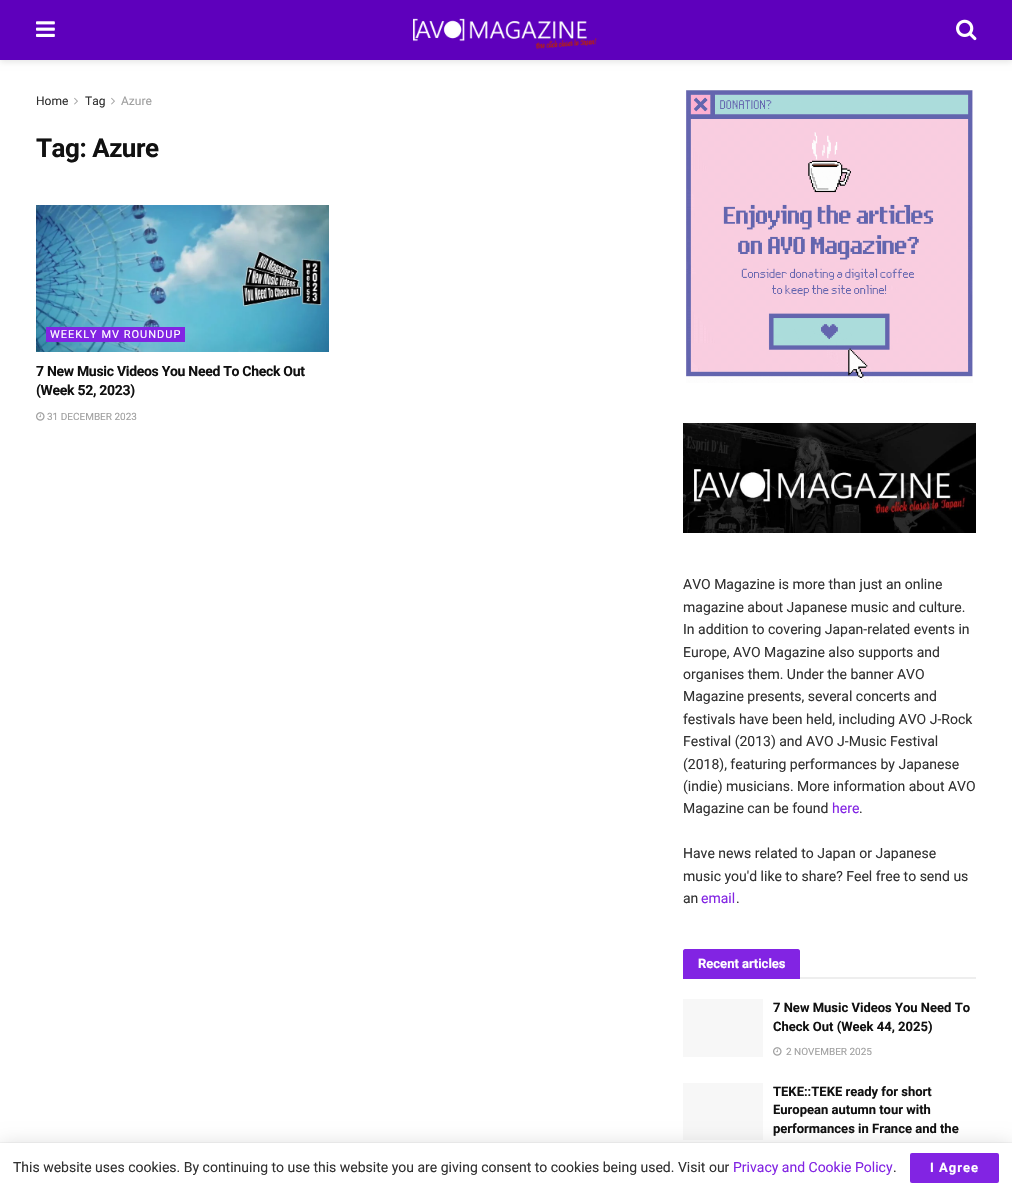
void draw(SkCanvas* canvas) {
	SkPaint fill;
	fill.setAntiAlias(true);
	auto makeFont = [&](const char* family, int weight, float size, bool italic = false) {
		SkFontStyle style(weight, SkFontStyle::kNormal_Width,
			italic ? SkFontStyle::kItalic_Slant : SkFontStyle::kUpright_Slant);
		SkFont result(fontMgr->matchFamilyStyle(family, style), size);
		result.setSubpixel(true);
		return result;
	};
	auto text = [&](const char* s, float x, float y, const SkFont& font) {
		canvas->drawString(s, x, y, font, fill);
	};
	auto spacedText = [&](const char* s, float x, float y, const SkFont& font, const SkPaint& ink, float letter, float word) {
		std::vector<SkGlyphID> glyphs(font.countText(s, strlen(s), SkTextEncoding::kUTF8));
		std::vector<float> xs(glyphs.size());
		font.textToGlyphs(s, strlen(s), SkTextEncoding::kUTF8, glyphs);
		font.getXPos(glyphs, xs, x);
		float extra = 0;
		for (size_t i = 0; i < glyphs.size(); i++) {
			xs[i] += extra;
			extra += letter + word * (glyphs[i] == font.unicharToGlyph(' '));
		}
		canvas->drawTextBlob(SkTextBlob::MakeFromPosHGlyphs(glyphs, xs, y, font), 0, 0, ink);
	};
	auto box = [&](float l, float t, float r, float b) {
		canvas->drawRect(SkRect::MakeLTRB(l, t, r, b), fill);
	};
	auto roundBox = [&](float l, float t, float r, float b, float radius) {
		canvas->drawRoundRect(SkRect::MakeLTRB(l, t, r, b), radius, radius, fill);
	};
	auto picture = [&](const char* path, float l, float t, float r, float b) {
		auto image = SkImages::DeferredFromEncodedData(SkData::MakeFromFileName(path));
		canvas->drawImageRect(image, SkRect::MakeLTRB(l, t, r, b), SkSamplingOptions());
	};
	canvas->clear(0xFFFFFFFF);
	fill.setColor(0x1A000000);
	fill.setMaskFilter(SkMaskFilter::MakeBlur(kNormal_SkBlurStyle, 3));
	canvas->drawRect(SkRect::MakeLTRB(0, 2, 1012, 62), fill);
	fill.setMaskFilter(nullptr);
	fill.setColor(0xFF5E00BC);
	box(0, 0, 1012, 60);
	picture("image0.png", 36, 21, 55, 37);
	picture("image1.png", 413, 18, 597, 50);
	picture("image2.png", 956, 19, 977, 41);
	picture("image3.png", 74, 97, 78, 105);
	picture("image3.png", 111, 97, 115, 105);
	picture("image4.png", 36, 205, 329, 352);
	fill.setColor(0xFF8224E3);
	box(46, 327, 185, 342);
	picture("image5.png", 36, 412, 45, 421);
	picture("image6.png", 686, 90, 973, 383);
	picture("image7.png", 683, 423, 976, 533);
	fill.setColor(0xFFEEEEEE);
	box(800, 977, 976, 979);
	fill.setColor(0xFF8224E3);
	canvas->drawPath(SkPathBuilder().moveTo(685, 949).lineTo(798, 949).cubicTo(799, 949, 800, 950, 800, 951).lineTo(800, 979).lineTo(683, 979).lineTo(683, 951).cubicTo(683, 950, 684, 949, 685, 949).close().detach(), fill);
	fill.setColor(0xFFF7F7F7);
	box(683, 999, 763, 1057);
	picture("image5.png", 773, 1047, 782, 1056);
	box(683, 1083, 763, 1140);
	fill.setColor(0x26000000);
	fill.setMaskFilter(SkMaskFilter::MakeBlur(kNormal_SkBlurStyle, 10));
	canvas->drawRect(SkRect::MakeLTRB(0, 1145, 1012, 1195), fill);
	fill.setMaskFilter(nullptr);
	fill.setColor(0x33000000);
	fill.setMaskFilter(SkMaskFilter::MakeBlur(kNormal_SkBlurStyle, 0.5f));
	canvas->drawRect(SkRect::MakeLTRB(0, 1143, 1012, 1193), fill);
	fill.setMaskFilter(nullptr);
	fill.setColor(0xFFFFFFFF);
	box(0, 1143, 1012, 1193);
	fill.setColor(0xFF8224E3);
	roundBox(910, 1153, 999, 1183, 2);
	auto font1 = makeFont("Roboto", 400, 12);
	fill.setColor(0xFF323232);
	text("Home", 36, 105, font1);
	text("Tag", 85, 105, font1);
	fill.setColor(0xFFA0A0A0);
	text("Azure", 121, 105, font1);
	auto font2 = makeFont("Roboto", 700, 26);
	fill.setColor(0xFF111111);
	spacedText("Tag: Azure", 36, 157, font2, fill, -0.5f, 0);
	auto font3 = makeFont("Roboto", 400, 11);
	fill.setColor(0xFFFFFFFF);
	spacedText("WEEKLY MV ROUNDUP", 50, 338, font3, fill, 1, 0);
	auto font4 = makeFont("Roboto", 700, 14);
	fill.setColor(0xFF111111);
	spacedText("7 New Music Videos You Need To Check Out", 36, 376, font4, fill, -0.3f, 0);
	spacedText("(Week 52, 2023)", 36, 395, font4, fill, -0.3f, 0);
	auto font5 = makeFont("Roboto", 400, 10);
	fill.setColor(0xFFA0A0A0);
	text("31 DECEMBER 2023", 47, 420, font5);
	auto font6 = makeFont("Roboto", 400, 14);
	fill.setColor(0xFF323232);
	text("AVO Magazine is more than just an online", 683, 589, font6);
	text("magazine about Japanese music and culture.", 683, 612, font6);
	text("In addition to covering Japan-related events in", 683, 634, font6);
	text("Europe, AVO Magazine also supports and", 683, 657, font6);
	text("organises them. Under the banner AVO", 683, 679, font6);
	text("Magazine presents, several concerts and", 683, 701, font6);
	text("festivals have been held, including AVO J-Rock", 683, 724, font6);
	text("Festival (2013) and AVO J-Music Festival", 683, 746, font6);
	text("(2018), featuring performances by Japanese", 683, 769, font6);
	text("(indie) musicians. More information about AVO", 683, 791, font6);
	text("Magazine can be found", 683, 813, font6);
	fill.setColor(0xFF8224E3);
	text("here", 832, 813, font6);
	fill.setColor(0xFF323232);
	text(".", 859, 813, font6);
	text("Have news related to Japan or Japanese", 683, 858, font6);
	text("music you'd like to share? Feel free to send us", 683, 881, font6);
	text("an", 683, 903, font6);
	fill.setColor(0xFF8224E3);
	text("email", 701, 903, font6);
	fill.setColor(0xFF323232);
	text(".", 736, 903, font6);
	auto font7 = makeFont("Roboto", 700, 13);
	fill.setColor(0xFFFFFFFF);
	text("Recent articles", 698, 968, font7);
	fill.setColor(0xFF111111);
	text("7 New Music Videos You Need To", 773, 1012, font7);
	text("Check Out (Week 44, 2025)", 773, 1031, font7);
	fill.setColor(0xFFA0A0A0);
	text("2 NOVEMBER 2025", 786, 1055, font5);
	fill.setColor(0xFF111111);
	text("TEKE::TEKE ready for short", 773, 1096, font7);
	text("European autumn tour with", 773, 1114, font7);
	text("performances in France and the", 773, 1133, font7);
	fill.setColor(0xFF323232);
	text("This website uses cookies. By continuing to use this website you are giving consent to cookies being used. Visit our", 13, 1172, font6);
	fill.setColor(0xFF8224E3);
	text("Privacy and Cookie Policy", 733, 1172, font6);
	fill.setColor(0xFF323232);
	text(".", 893, 1172, font6);
	fill.setColor(0xFFFFFFFF);
	spacedText("I Agree", 930, 1172, font7, fill, 1, 0);
}
